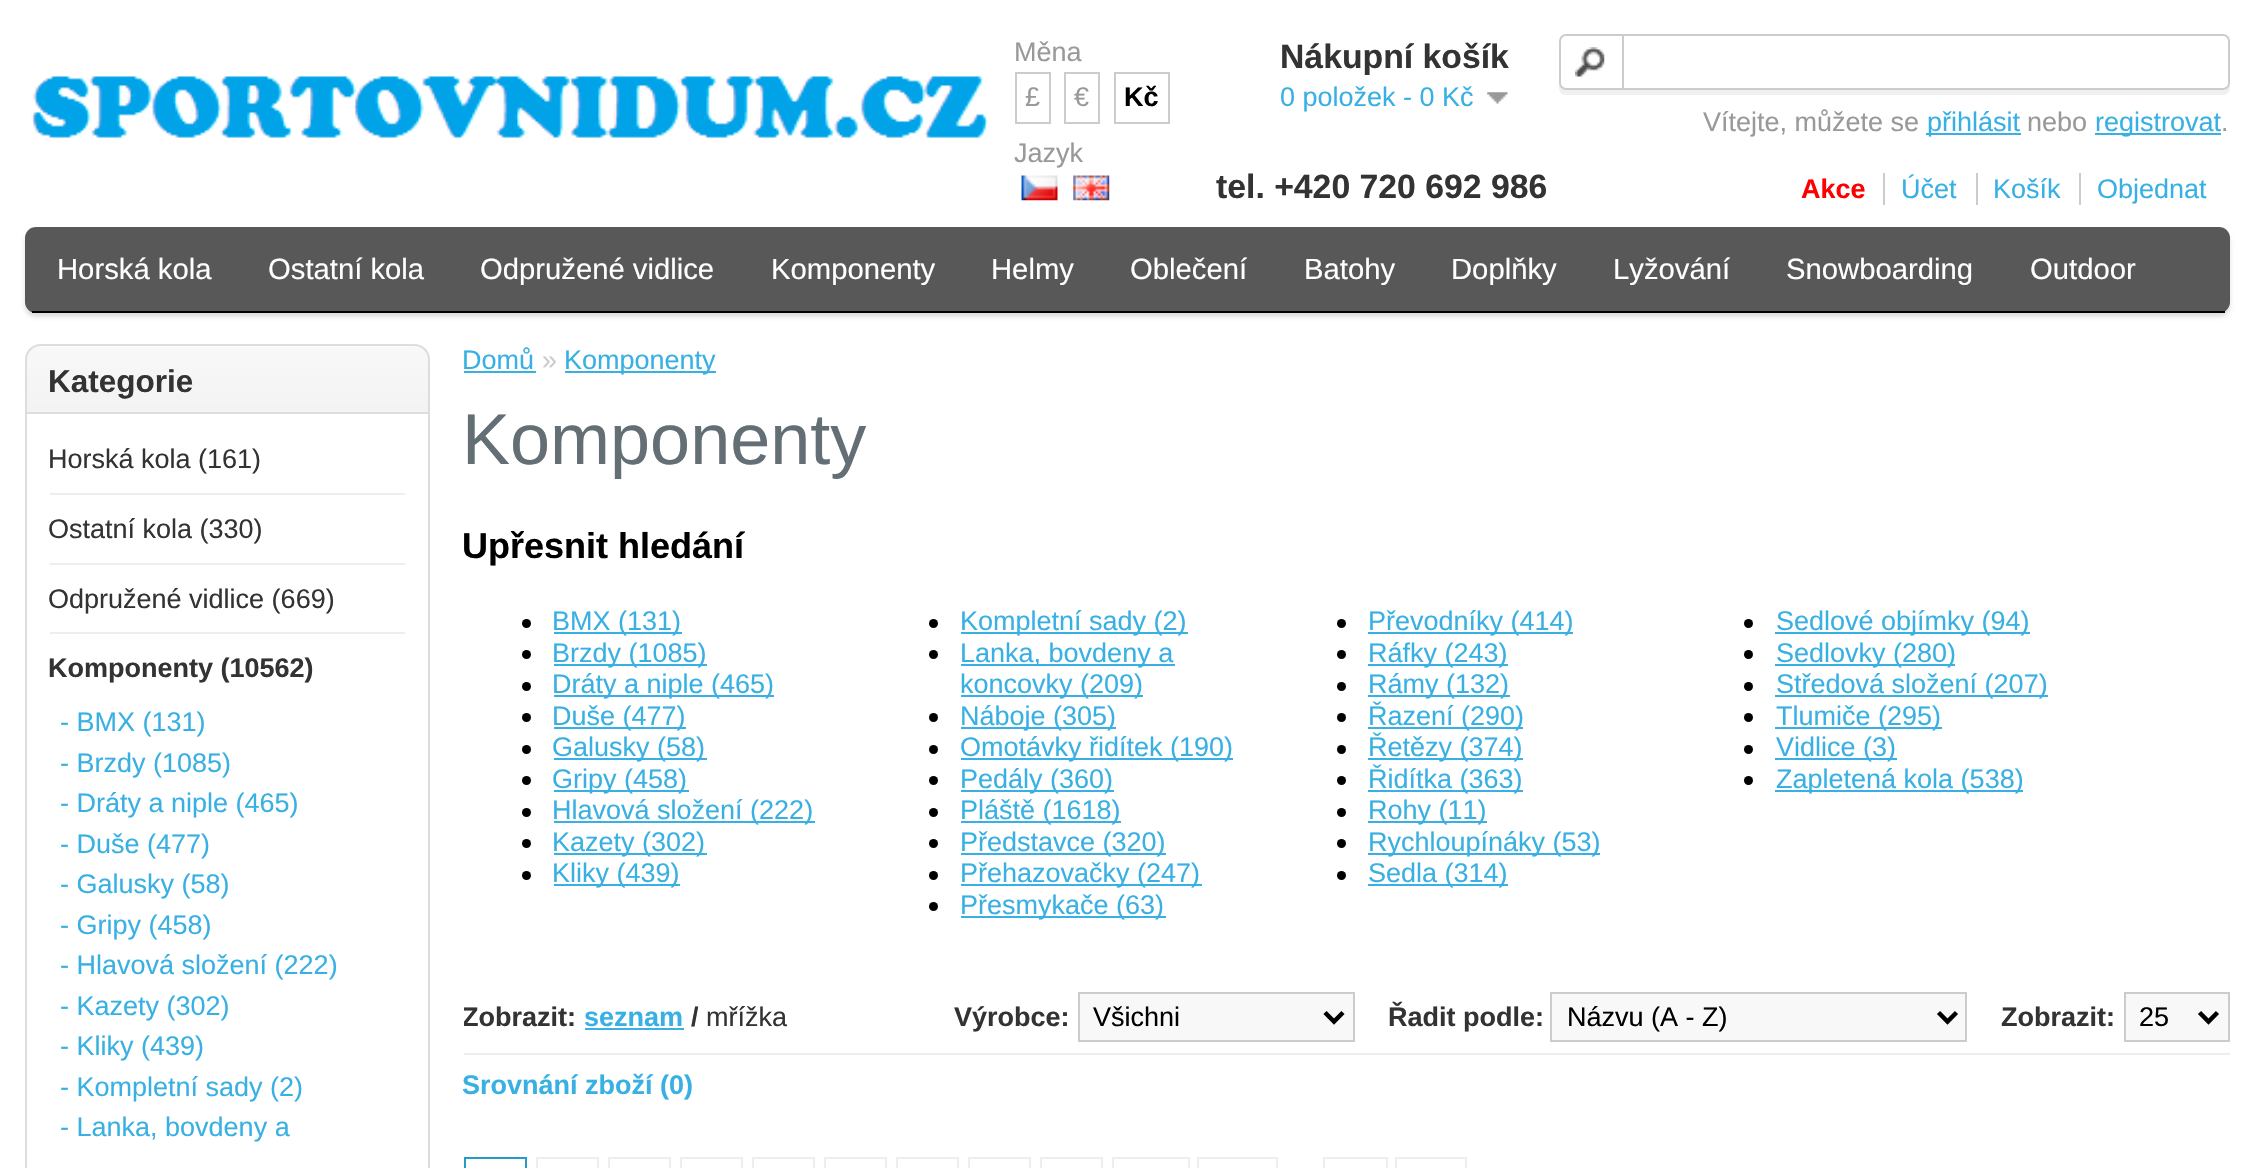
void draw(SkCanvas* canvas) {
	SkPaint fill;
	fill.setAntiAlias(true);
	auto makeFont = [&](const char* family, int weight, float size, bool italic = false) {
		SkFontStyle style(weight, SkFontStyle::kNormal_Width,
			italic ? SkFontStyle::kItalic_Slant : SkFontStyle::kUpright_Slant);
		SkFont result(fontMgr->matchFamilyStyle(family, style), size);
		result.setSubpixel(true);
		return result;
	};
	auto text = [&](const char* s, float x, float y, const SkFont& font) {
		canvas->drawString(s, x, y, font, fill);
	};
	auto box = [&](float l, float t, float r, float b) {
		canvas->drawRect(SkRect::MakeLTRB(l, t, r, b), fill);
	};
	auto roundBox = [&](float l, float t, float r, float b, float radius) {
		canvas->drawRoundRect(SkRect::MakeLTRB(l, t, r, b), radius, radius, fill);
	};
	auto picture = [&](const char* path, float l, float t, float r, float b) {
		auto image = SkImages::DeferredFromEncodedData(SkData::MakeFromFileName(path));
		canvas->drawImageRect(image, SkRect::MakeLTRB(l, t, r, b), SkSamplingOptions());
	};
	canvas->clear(0xFFFFFFFF);
	picture("image0.png", 31, 76, 989, 138);
	fill.setStyle(SkPaint::kStroke_Style);
	fill.setStrokeWidth(2);
	fill.setColor(0xFFCCCCCC);
	canvas->drawRect(SkRect::MakeLTRB(1016, 73, 1050, 123), fill);
	canvas->drawRect(SkRect::MakeLTRB(1065, 73, 1099, 123), fill);
	canvas->drawRect(SkRect::MakeLTRB(1115, 73, 1169, 123), fill);
	picture("image1.png", 1487, 92, 1508, 104);
	fill.setStyle(SkPaint::kFill_Style);
	fill.setColor(0xFFF0F0F0);
	canvas->drawPath(SkPathBuilder().moveTo(1559, 43).lineTo(1559, 88).cubicTo(1559, 92, 1562, 95, 1566, 95).lineTo(2223, 95).cubicTo(2227, 95, 2230, 92, 2230, 88).lineTo(2230, 43).lineTo(2230, 83).cubicTo(2230, 87, 2227, 90, 2223, 90).lineTo(1566, 90).cubicTo(1562, 90, 1559, 87, 1559, 83).close().detach(), fill);
	fill.setColor(0xFFFFFFFF);
	canvas->drawRoundRect(SkRect::MakeLTRB(1560, 35, 2229, 89), 6, 6, fill);
	fill.setStyle(SkPaint::kStroke_Style);
	fill.setColor(0xFFCCCCCC);
	canvas->drawRoundRect(SkRect::MakeLTRB(1560, 35, 2229, 89), 6, 6, fill);
	picture("image2.png", 1575, 47, 1605, 77);
	fill.setStyle(SkPaint::kFill_Style);
	box(1622, 34, 1624, 88);
	fill.setColor(0xFF38B0E3);
	box(1926, 133, 2021, 135);
	box(2095, 133, 2221, 135);
	picture("image3.png", 1021, 175, 1058, 201);
	picture("image4.png", 1073, 175, 1110, 201);
	fill.setColor(0xFFCCCCCC);
	box(1883, 173, 1885, 205);
	box(1976, 173, 1978, 205);
	box(2079, 173, 2081, 205);
	fill.setColor(0xFFDDDDDD);
	fill.setMaskFilter(SkMaskFilter::MakeBlur(kNormal_SkBlurStyle, 2));
	canvas->drawRoundRect(SkRect::MakeLTRB(25, 232, 2230, 317), 11, 11, fill);
	fill.setMaskFilter(nullptr);
	fill.setColor(0xFF585858);
	roundBox(25, 227, 2230, 313, 11);
	fill.setColor(0xFF000000);
	box(32, 311, 2225, 313);
	picture("image5.png", 25, 346, 430, 412);
	fill.setStyle(SkPaint::kStroke_Style);
	fill.setColor(0xFFDBDEE1);
	canvas->drawPath(SkPathBuilder().moveTo(41, 345).lineTo(414, 345).cubicTo(422.5f, 345, 429, 351.5f, 429, 360).lineTo(429, 413).lineTo(26, 413).lineTo(26, 360).cubicTo(26, 351.5f, 32.5f, 345, 41, 345).close().detach(), fill);
	fill.setStyle(SkPaint::kFill_Style);
	canvas->drawPath(SkPathBuilder(SkPathFillType::kEvenOdd).moveTo(25, 414).lineTo(430, 414).lineTo(430, 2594).cubicTo(430, 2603, 423, 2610, 414, 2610).lineTo(40, 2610).cubicTo(32, 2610, 25, 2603, 25, 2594).close().moveTo(27, 414).lineTo(428, 414).lineTo(428, 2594).cubicTo(428, 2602, 421, 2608, 414, 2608).lineTo(40, 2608).cubicTo(33, 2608, 27, 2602, 27, 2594).close().detach(), fill);
	fill.setColor(0xFFEEEEEE);
	box(50, 493, 405, 495);
	box(50, 563, 405, 565);
	box(50, 632, 405, 634);
	fill.setColor(0xFF38B0E3);
	box(464, 371, 536, 373);
	box(565, 371, 716, 373);
	fill.setColor(0xFF000000);
	canvas->drawCircle(526.5f, 623.5f, 4.5f, fill);
	fill.setColor(0xFF38B0E3);
	box(554, 632, 682, 634);
	fill.setColor(0xFF000000);
	canvas->drawCircle(526.5f, 654.5f, 4.5f, fill);
	fill.setColor(0xFF38B0E3);
	box(554, 664, 707, 666);
	fill.setColor(0xFF000000);
	canvas->drawCircle(526.5f, 686.5f, 4.5f, fill);
	fill.setColor(0xFF38B0E3);
	box(554, 695, 774, 697);
	fill.setColor(0xFF000000);
	canvas->drawCircle(526.5f, 717.5f, 4.5f, fill);
	fill.setColor(0xFF38B0E3);
	box(554, 727, 686, 729);
	fill.setColor(0xFF000000);
	canvas->drawCircle(526.5f, 749.5f, 4.5f, fill);
	fill.setColor(0xFF38B0E3);
	box(554, 758, 707, 760);
	fill.setColor(0xFF000000);
	canvas->drawCircle(526.5f, 780.5f, 4.5f, fill);
	fill.setColor(0xFF38B0E3);
	box(554, 790, 689, 792);
	fill.setColor(0xFF000000);
	canvas->drawCircle(526.5f, 812.5f, 4.5f, fill);
	fill.setColor(0xFF38B0E3);
	box(554, 821, 815, 823);
	fill.setColor(0xFF000000);
	canvas->drawCircle(526.5f, 843.5f, 4.5f, fill);
	fill.setColor(0xFF38B0E3);
	box(554, 853, 707, 855);
	fill.setColor(0xFF000000);
	canvas->drawCircle(526.5f, 875.5f, 4.5f, fill);
	fill.setColor(0xFF38B0E3);
	box(554, 884, 680, 886);
	fill.setColor(0xFF000000);
	canvas->drawCircle(933.5f, 623.5f, 4.5f, fill);
	fill.setColor(0xFF38B0E3);
	box(961, 632, 1188, 634);
	fill.setColor(0xFF000000);
	canvas->drawCircle(933.5f, 654.5f, 4.5f, fill);
	fill.setColor(0xFF38B0E3);
	box(961, 664, 1175, 666);
	box(961, 695, 1143, 697);
	fill.setColor(0xFF000000);
	canvas->drawCircle(933.5f, 717.5f, 4.5f, fill);
	fill.setColor(0xFF38B0E3);
	box(961, 727, 1116, 729);
	fill.setColor(0xFF000000);
	canvas->drawCircle(933.5f, 749.5f, 4.5f, fill);
	fill.setColor(0xFF38B0E3);
	box(961, 758, 1233, 760);
	fill.setColor(0xFF000000);
	canvas->drawCircle(933.5f, 780.5f, 4.5f, fill);
	fill.setColor(0xFF38B0E3);
	box(961, 790, 1114, 792);
	fill.setColor(0xFF000000);
	canvas->drawCircle(933.5f, 812.5f, 4.5f, fill);
	fill.setColor(0xFF38B0E3);
	box(961, 821, 1121, 823);
	fill.setColor(0xFF000000);
	canvas->drawCircle(933.5f, 843.5f, 4.5f, fill);
	fill.setColor(0xFF38B0E3);
	box(961, 853, 1166, 855);
	fill.setColor(0xFF000000);
	canvas->drawCircle(933.5f, 875.5f, 4.5f, fill);
	fill.setColor(0xFF38B0E3);
	box(961, 884, 1202, 886);
	fill.setColor(0xFF000000);
	canvas->drawCircle(933.5f, 906.5f, 4.5f, fill);
	fill.setColor(0xFF38B0E3);
	box(961, 916, 1166, 918);
	fill.setColor(0xFF000000);
	canvas->drawCircle(1341.5f, 623.5f, 4.5f, fill);
	fill.setColor(0xFF38B0E3);
	box(1368, 632, 1573, 634);
	fill.setColor(0xFF000000);
	canvas->drawCircle(1341.5f, 654.5f, 4.5f, fill);
	fill.setColor(0xFF38B0E3);
	box(1368, 664, 1508, 666);
	fill.setColor(0xFF000000);
	canvas->drawCircle(1341.5f, 686.5f, 4.5f, fill);
	fill.setColor(0xFF38B0E3);
	box(1368, 695, 1510, 697);
	fill.setColor(0xFF000000);
	canvas->drawCircle(1341.5f, 717.5f, 4.5f, fill);
	fill.setColor(0xFF38B0E3);
	box(1368, 727, 1523, 729);
	fill.setColor(0xFF000000);
	canvas->drawCircle(1341.5f, 749.5f, 4.5f, fill);
	fill.setColor(0xFF38B0E3);
	box(1368, 758, 1523, 760);
	fill.setColor(0xFF000000);
	canvas->drawCircle(1341.5f, 780.5f, 4.5f, fill);
	fill.setColor(0xFF38B0E3);
	box(1368, 790, 1523, 792);
	fill.setColor(0xFF000000);
	canvas->drawCircle(1341.5f, 812.5f, 4.5f, fill);
	fill.setColor(0xFF38B0E3);
	box(1368, 821, 1487, 823);
	fill.setColor(0xFF000000);
	canvas->drawCircle(1341.5f, 843.5f, 4.5f, fill);
	fill.setColor(0xFF38B0E3);
	box(1368, 853, 1600, 855);
	fill.setColor(0xFF000000);
	canvas->drawCircle(1341.5f, 875.5f, 4.5f, fill);
	fill.setColor(0xFF38B0E3);
	box(1368, 884, 1508, 886);
	fill.setColor(0xFF000000);
	canvas->drawCircle(1748.5f, 623.5f, 4.5f, fill);
	fill.setColor(0xFF38B0E3);
	box(1775, 632, 2030, 634);
	fill.setColor(0xFF000000);
	canvas->drawCircle(1748.5f, 654.5f, 4.5f, fill);
	fill.setColor(0xFF38B0E3);
	box(1775, 664, 1955, 666);
	fill.setColor(0xFF000000);
	canvas->drawCircle(1748.5f, 686.5f, 4.5f, fill);
	fill.setColor(0xFF38B0E3);
	box(1775, 695, 2048, 697);
	fill.setColor(0xFF000000);
	canvas->drawCircle(1748.5f, 717.5f, 4.5f, fill);
	fill.setColor(0xFF38B0E3);
	box(1775, 727, 1942, 729);
	fill.setColor(0xFF000000);
	canvas->drawCircle(1748.5f, 749.5f, 4.5f, fill);
	fill.setColor(0xFF38B0E3);
	box(1775, 758, 1897, 760);
	fill.setColor(0xFF000000);
	canvas->drawCircle(1748.5f, 780.5f, 4.5f, fill);
	fill.setColor(0xFF38B0E3);
	box(1775, 790, 2023, 792);
	fill.setColor(0xFFEEEEEE);
	box(464, 1053, 2230, 1055);
	fill.setColor(0xFF38B0E3);
	box(585, 1028, 684, 1030);
	fill.setColor(0xFFF8F8F8);
	canvas->drawRect(SkRect::MakeLTRB(1079, 993, 1354, 1041), fill);
	fill.setStyle(SkPaint::kStroke_Style);
	fill.setColor(0xFFCCCCCC);
	canvas->drawRect(SkRect::MakeLTRB(1079, 993, 1354, 1041), fill);
	fill.setStrokeWidth(4.5f);
	fill.setColor(0xFF000000);
	canvas->drawPath(SkPathBuilder().moveTo(1325, 1012.5f).lineTo(1334, 1021.5f).lineTo(1343, 1012.5f).detach(), fill);
	fill.setStyle(SkPaint::kFill_Style);
	fill.setColor(0xFFF8F8F8);
	canvas->drawRect(SkRect::MakeLTRB(1551, 993, 1966, 1041), fill);
	fill.setStyle(SkPaint::kStroke_Style);
	fill.setStrokeWidth(2);
	fill.setColor(0xFFCCCCCC);
	canvas->drawRect(SkRect::MakeLTRB(1551, 993, 1966, 1041), fill);
	fill.setStrokeWidth(4.5f);
	fill.setColor(0xFF000000);
	canvas->drawPath(SkPathBuilder().moveTo(1938.5f, 1012.5f).lineTo(1947.5f, 1021.5f).lineTo(1956.5f, 1012.5f).detach(), fill);
	fill.setStyle(SkPaint::kFill_Style);
	fill.setColor(0xFFF8F8F8);
	canvas->drawRect(SkRect::MakeLTRB(2125, 993, 2229, 1041), fill);
	fill.setStyle(SkPaint::kStroke_Style);
	fill.setStrokeWidth(2);
	fill.setColor(0xFFCCCCCC);
	canvas->drawRect(SkRect::MakeLTRB(2125, 993, 2229, 1041), fill);
	fill.setStrokeWidth(4.5f);
	fill.setColor(0xFF000000);
	canvas->drawPath(SkPathBuilder().moveTo(2199.5f, 1012.5f).lineTo(2208.5f, 1021.5f).lineTo(2217.5f, 1012.5f).detach(), fill);
	fill.setStrokeWidth(2);
	fill.setColor(0xFF269BC6);
	canvas->drawRect(SkRect::MakeLTRB(465, 1158, 526, 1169), fill);
	fill.setColor(0xFFEEEEEE);
	canvas->drawRect(SkRect::MakeLTRB(537, 1158, 598, 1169), fill);
	canvas->drawRect(SkRect::MakeLTRB(609, 1158, 670, 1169), fill);
	canvas->drawRect(SkRect::MakeLTRB(681, 1158, 742, 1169), fill);
	canvas->drawRect(SkRect::MakeLTRB(753, 1158, 814, 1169), fill);
	canvas->drawRect(SkRect::MakeLTRB(825, 1158, 886, 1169), fill);
	canvas->drawRect(SkRect::MakeLTRB(897, 1158, 958, 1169), fill);
	canvas->drawRect(SkRect::MakeLTRB(969, 1158, 1030, 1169), fill);
	canvas->drawRect(SkRect::MakeLTRB(1041, 1158, 1102, 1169), fill);
	canvas->drawRect(SkRect::MakeLTRB(1113, 1158, 1189, 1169), fill);
	canvas->drawRect(SkRect::MakeLTRB(1198, 1158, 1277, 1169), fill);
	canvas->drawRect(SkRect::MakeLTRB(1324, 1158, 1387, 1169), fill);
	canvas->drawRect(SkRect::MakeLTRB(1396, 1158, 1466, 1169), fill);
	auto font1 = makeFont("Liberation Sans", 400, 27);
	fill.setStyle(SkPaint::kFill_Style);
	fill.setColor(0xFF999999);
	text("Měna", 1014, 61, font1);
	text("£", 1025, 106, font1);
	text("€", 1074, 106, font1);
	auto font2 = makeFont("Liberation Sans", 700, 27);
	fill.setColor(0xFF000000);
	text("Kč", 1124, 106, font2);
	auto font3 = makeFont("Liberation Sans", 700, 33.75f);
	fill.setColor(0xFF333333);
	text("Nákupní košík", 1280, 68, font3);
	fill.setColor(0xFF38B0E3);
	text("0 položek - 0 Kč", 1280, 106, font1);
	fill.setColor(0xFF999999);
	text("Vítejte, můžete se", 1703, 131, font1);
	fill.setColor(0xFF38B0E3);
	text("přihlásit", 1927, 131, font1);
	fill.setColor(0xFF999999);
	text("nebo", 2027, 131, font1);
	fill.setColor(0xFF38B0E3);
	text("registrovat", 2095, 131, font1);
	fill.setColor(0xFF999999);
	text(".", 2221, 131, font1);
	text("Jazyk", 1014, 162, font1);
	fill.setColor(0xFF333333);
	text("tel. +420 720 692 986", 1216, 198, font3);
	fill.setColor(0xFFFF0000);
	text("Akce", 1801, 198, font2);
	fill.setColor(0xFF38B0E3);
	text("Účet", 1901, 198, font1);
	text("Košík", 1993, 198, font1);
	text("Objednat", 2097, 198, font1);
	auto font4 = makeFont("Liberation Sans", 400, 29.25f);
	fill.setColor(0xFFFFFFFF);
	text("Horská kola", 57, 279, font4);
	text("Ostatní kola", 268, 279, font4);
	text("Odpružené vidlice", 480, 279, font4);
	text("Komponenty", 771, 279, font4);
	text("Helmy", 991, 279, font4);
	text("Oblečení", 1130, 279, font4);
	text("Batohy", 1304, 279, font4);
	text("Doplňky", 1451, 279, font4);
	text("Lyžování", 1613, 279, font4);
	text("Snowboarding", 1786, 279, font4);
	text("Outdoor", 2030, 279, font4);
	auto font5 = makeFont("Liberation Sans", 700, 31.5f);
	fill.setColor(0xFF333333);
	text("Kategorie", 48, 392, font5);
	text("Horská kola (161)", 48, 468, font1);
	text("Ostatní kola (330)", 48, 538, font1);
	text("Odpružené vidlice (669)", 48, 608, font1);
	text("Komponenty (10562)", 48, 677, font2);
	fill.setColor(0xFF38B0E3);
	text("- BMX (131)", 60, 731, font1);
	text("- Brzdy (1085)", 60, 772, font1);
	text("- Dráty a niple (465)", 60, 812, font1);
	text("- Duše (477)", 60, 853, font1);
	text("- Galusky (58)", 60, 893, font1);
	text("- Gripy (458)", 60, 934, font1);
	text("- Hlavová složení (222)", 60, 974, font1);
	text("- Kazety (302)", 60, 1015, font1);
	text("- Kliky (439)", 60, 1055, font1);
	text("- Kompletní sady (2)", 60, 1096, font1);
	text("- Lanka, bovdeny a", 60, 1136, font1);
	text("Domů", 462, 369, font1);
	fill.setColor(0xFFCCCCCC);
	text("»", 542, 369, font1);
	fill.setColor(0xFF38B0E3);
	text("Komponenty", 564, 369, font1);
	auto font6 = makeFont("Liberation Sans", 400, 72);
	fill.setColor(0xFF636E75);
	text("Komponenty", 462, 464, font6);
	auto font7 = makeFont("Liberation Sans", 700, 36);
	fill.setColor(0xFF000000);
	text("Upřesnit hledání", 462, 558, font7);
	fill.setColor(0xFF38B0E3);
	text("BMX (131)", 552, 630, font1);
	text("Brzdy (1085)", 552, 662, font1);
	text("Dráty a niple (465)", 552, 693, font1);
	text("Duše (477)", 552, 725, font1);
	text("Galusky (58)", 552, 756, font1);
	text("Gripy (458)", 552, 788, font1);
	text("Hlavová složení (222)", 552, 819, font1);
	text("Kazety (302)", 552, 851, font1);
	text("Kliky (439)", 552, 882, font1);
	text("Kompletní sady (2)", 960, 630, font1);
	text("Lanka, bovdeny a", 960, 662, font1);
	text("koncovky (209)", 960, 693, font1);
	text("Náboje (305)", 960, 725, font1);
	text("Omotávky řidítek (190)", 960, 756, font1);
	text("Pedály (360)", 960, 788, font1);
	text("Pláště (1618)", 960, 819, font1);
	text("Představce (320)", 960, 851, font1);
	text("Přehazovačky (247)", 960, 882, font1);
	text("Přesmykače (63)", 960, 914, font1);
	text("Převodníky (414)", 1368, 630, font1);
	text("Ráfky (243)", 1368, 662, font1);
	text("Rámy (132)", 1368, 693, font1);
	text("Řazení (290)", 1368, 725, font1);
	text("Řetězy (374)", 1368, 756, font1);
	text("Řidítka (363)", 1368, 788, font1);
	text("Rohy (11)", 1368, 819, font1);
	text("Rychloupínáky (53)", 1368, 851, font1);
	text("Sedla (314)", 1368, 882, font1);
	text("Sedlové objímky (94)", 1776, 630, font1);
	text("Sedlovky (280)", 1776, 662, font1);
	text("Středová složení (207)", 1776, 693, font1);
	text("Tlumiče (295)", 1776, 725, font1);
	text("Vidlice (3)", 1776, 756, font1);
	text("Zapletená kola (538)", 1776, 788, font1);
	canvas->save();
	canvas->clipRect(SkRect::MakeLTRB(464, 992, 2230, 1053));
	fill.setColor(0xFF333333);
	text("Zobrazit:", 462, 1026, font2);
	canvas->restore();
	fill.setColor(0xFF38B0E3);
	text("seznam", 584, 1026, font2);
	fill.setColor(0xFF333333);
	text("/", 691, 1026, font2);
	text("mřížka", 706, 1026, font1);
	text("Výrobce:", 954, 1026, font2);
	fill.setColor(0xFF000000);
	text("Všichni", 1093, 1026, font1);
	fill.setColor(0xFF333333);
	text("Řadit podle:", 1388, 1026, font2);
	fill.setColor(0xFF000000);
	text("Názvu (A - Z)", 1567, 1026, font1);
	fill.setColor(0xFF333333);
	text("Zobrazit:", 2001, 1026, font2);
	fill.setColor(0xFF000000);
	text("25", 2139, 1026, font1);
	fill.setColor(0xFF38B0E3);
	text("Srovnání zboží (0)", 462, 1094, font2);
}
